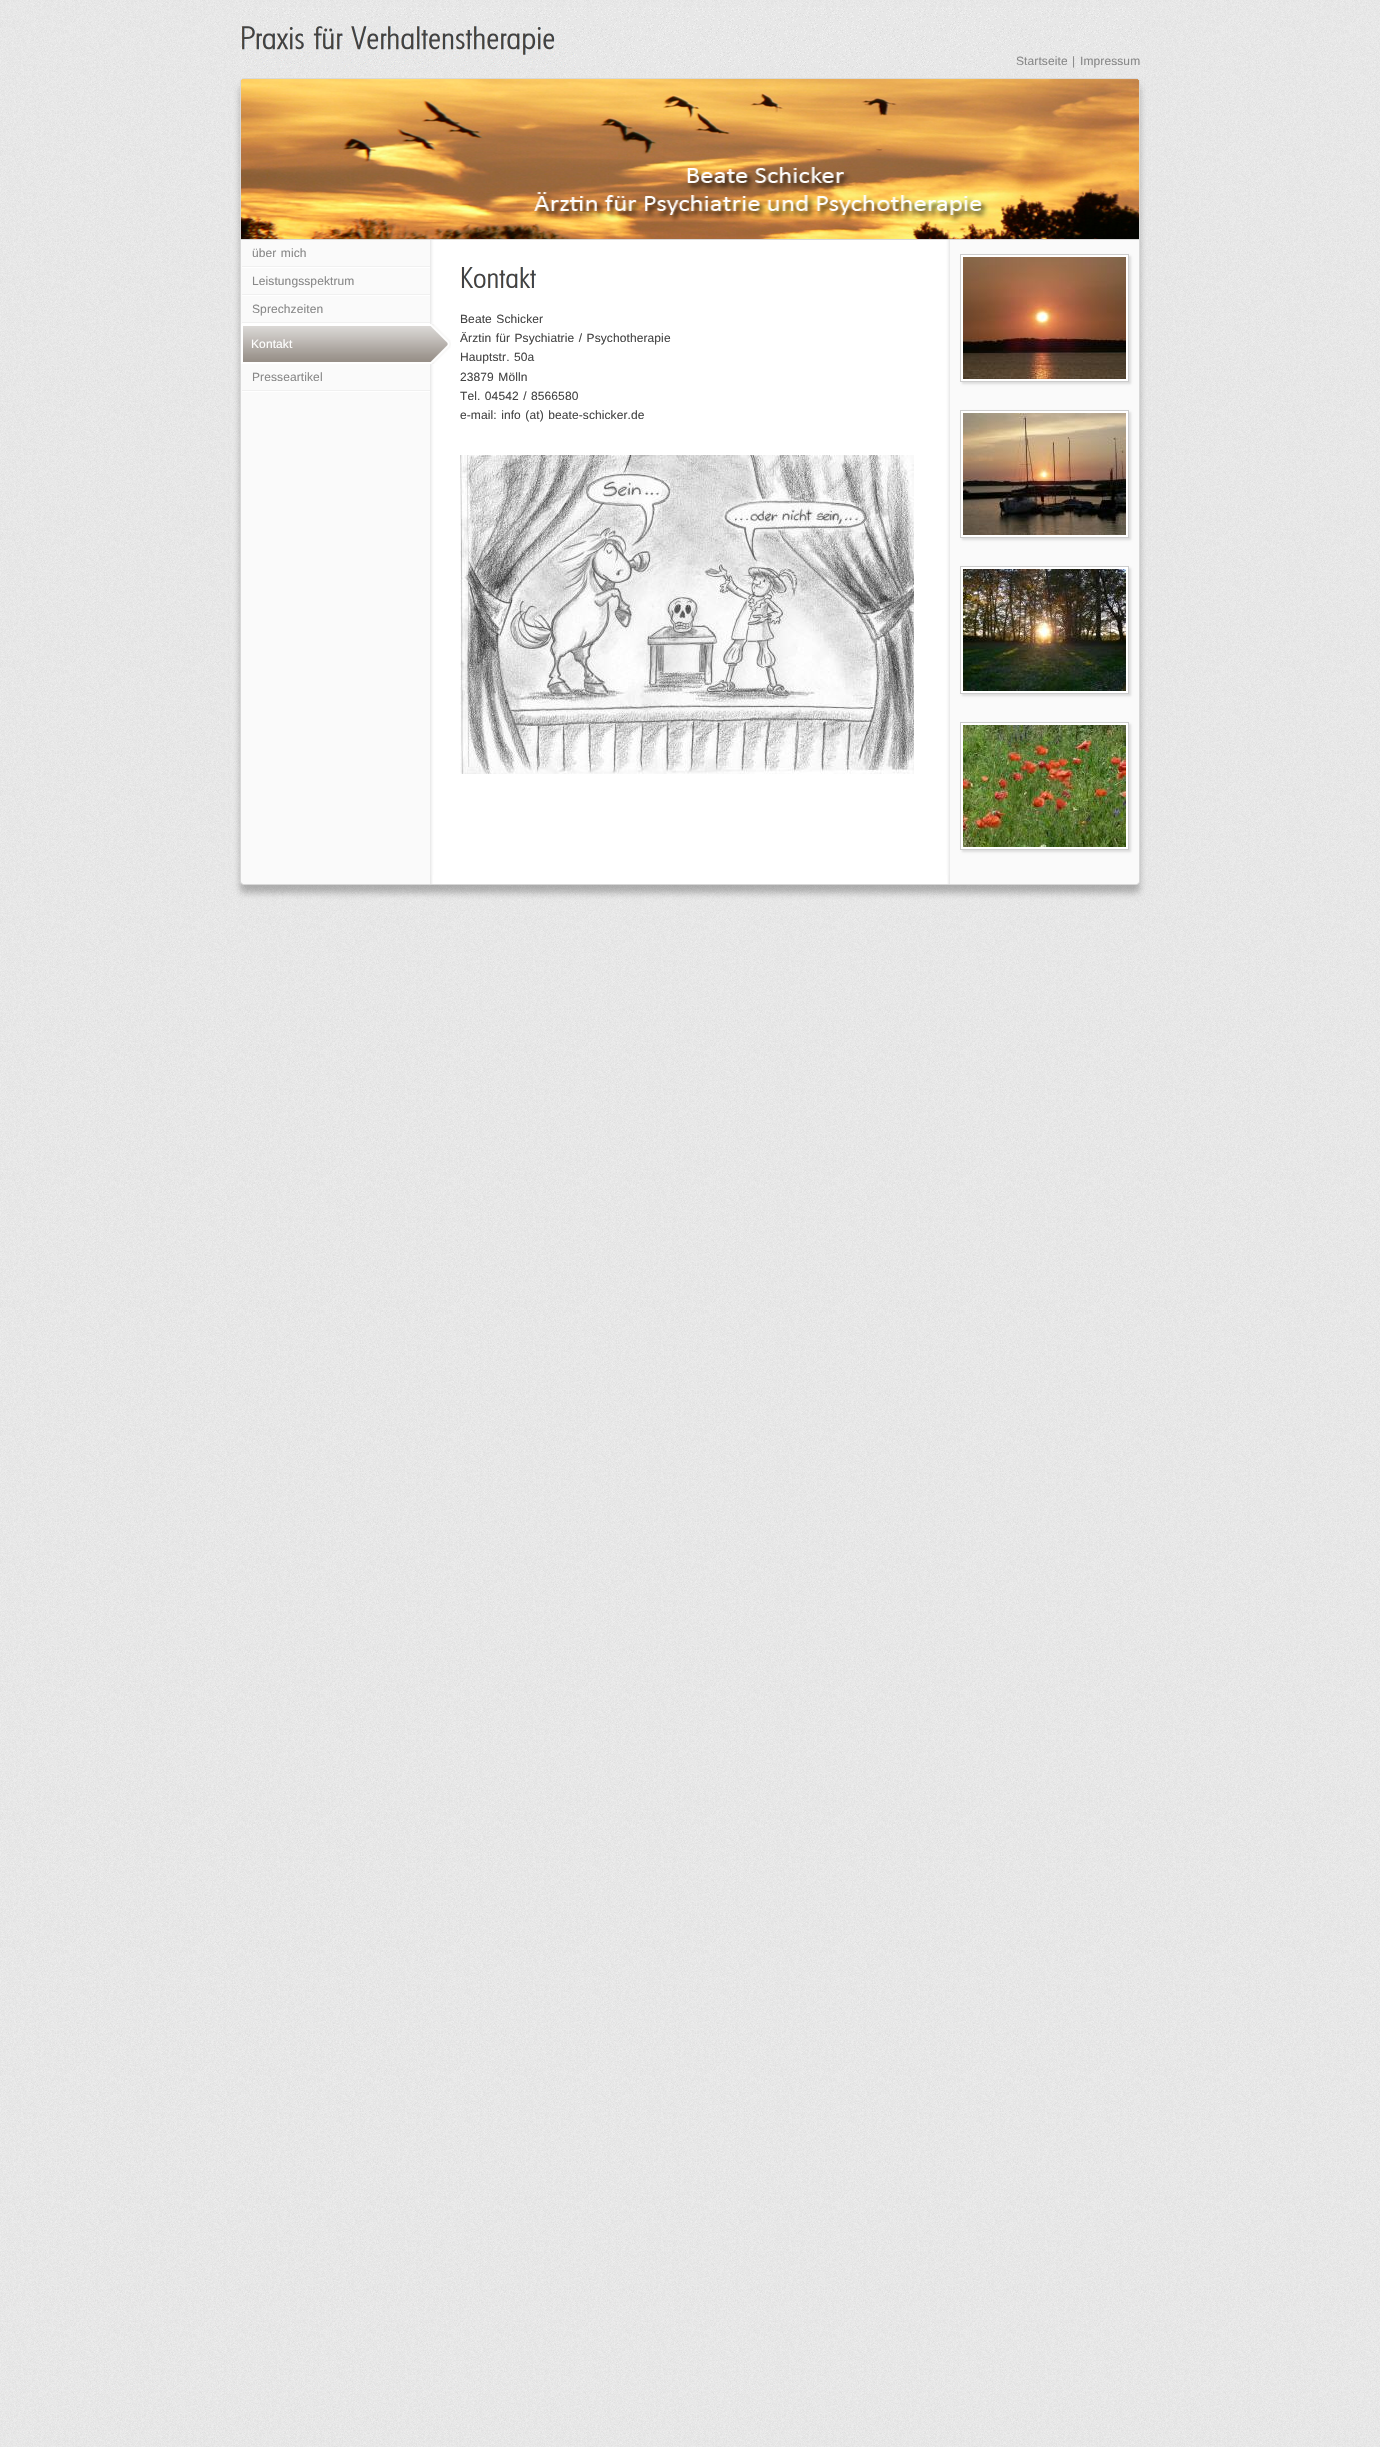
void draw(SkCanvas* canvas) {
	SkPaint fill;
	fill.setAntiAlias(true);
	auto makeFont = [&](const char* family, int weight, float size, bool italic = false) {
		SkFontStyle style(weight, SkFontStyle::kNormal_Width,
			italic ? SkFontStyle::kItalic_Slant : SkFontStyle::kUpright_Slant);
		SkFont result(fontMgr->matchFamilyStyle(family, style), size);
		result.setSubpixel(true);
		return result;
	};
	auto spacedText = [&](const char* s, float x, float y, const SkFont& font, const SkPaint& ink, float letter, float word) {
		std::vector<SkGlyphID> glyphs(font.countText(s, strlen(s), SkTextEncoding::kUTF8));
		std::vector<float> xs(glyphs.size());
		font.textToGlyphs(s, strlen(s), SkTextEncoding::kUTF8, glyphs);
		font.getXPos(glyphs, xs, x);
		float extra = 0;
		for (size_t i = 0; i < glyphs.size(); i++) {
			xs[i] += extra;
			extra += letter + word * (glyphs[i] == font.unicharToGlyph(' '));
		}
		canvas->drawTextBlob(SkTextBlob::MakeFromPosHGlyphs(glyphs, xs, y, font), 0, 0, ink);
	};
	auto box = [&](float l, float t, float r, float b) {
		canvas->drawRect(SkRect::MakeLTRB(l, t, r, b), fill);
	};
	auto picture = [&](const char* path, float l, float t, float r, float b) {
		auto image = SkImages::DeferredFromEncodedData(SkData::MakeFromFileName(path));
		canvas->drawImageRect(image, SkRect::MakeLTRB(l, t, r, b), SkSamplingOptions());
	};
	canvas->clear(0xFFFFFFFF);
	picture("image0.png", 0, 0, 1380, 2447);
	picture("image1.png", 240, 8, 1140, 68);
	picture("image2.png", 220, 98, 1160, 875);
	picture("image4.png", 241, 79, 1139, 239);
	picture("image3.png", 220, 68, 1160, 98);
	fill.setColor(0xFFD8D8D8);
	box(241, 239, 1139, 240);
	picture("image5.png", 242, 266, 430, 268);
	picture("image5.png", 242, 294, 430, 296);
	picture("image5.png", 242, 322, 430, 324);
	picture("image6.png", 241, 324, 451, 364);
	picture("image5.png", 242, 390, 430, 392);
	picture("image7.png", 461, 267, 536, 288);
	picture("image8.png", 460, 455, 914, 774);
	fill.setColor(0xFFDDDDDD);
	fill.setMaskFilter(SkMaskFilter::MakeBlur(kNormal_SkBlurStyle, 1));
	canvas->drawRect(SkRect::MakeLTRB(962, 256, 1131, 384), fill);
	fill.setMaskFilter(nullptr);
	fill.setColor(0xFFFFFFFF);
	canvas->drawRect(SkRect::MakeLTRB(960.5f, 254.5f, 1128.5f, 381.5f), fill);
	fill.setStyle(SkPaint::kStroke_Style);
	fill.setStrokeWidth(1);
	fill.setColor(0xFFCCCCCC);
	canvas->drawRect(SkRect::MakeLTRB(960.5f, 254.5f, 1128.5f, 381.5f), fill);
	picture("image9.png", 963, 257, 1126, 379);
	fill.setStyle(SkPaint::kFill_Style);
	fill.setColor(0xFFDDDDDD);
	fill.setMaskFilter(SkMaskFilter::MakeBlur(kNormal_SkBlurStyle, 1));
	canvas->drawRect(SkRect::MakeLTRB(962, 412, 1131, 540), fill);
	fill.setMaskFilter(nullptr);
	fill.setColor(0xFFFFFFFF);
	canvas->drawRect(SkRect::MakeLTRB(960.5f, 410.5f, 1128.5f, 537.5f), fill);
	fill.setStyle(SkPaint::kStroke_Style);
	fill.setColor(0xFFCCCCCC);
	canvas->drawRect(SkRect::MakeLTRB(960.5f, 410.5f, 1128.5f, 537.5f), fill);
	picture("image10.png", 963, 413, 1126, 535);
	fill.setStyle(SkPaint::kFill_Style);
	fill.setColor(0xFFDDDDDD);
	fill.setMaskFilter(SkMaskFilter::MakeBlur(kNormal_SkBlurStyle, 1));
	canvas->drawRect(SkRect::MakeLTRB(962, 568, 1131, 696), fill);
	fill.setMaskFilter(nullptr);
	fill.setColor(0xFFFFFFFF);
	canvas->drawRect(SkRect::MakeLTRB(960.5f, 566.5f, 1128.5f, 693.5f), fill);
	fill.setStyle(SkPaint::kStroke_Style);
	fill.setColor(0xFFCCCCCC);
	canvas->drawRect(SkRect::MakeLTRB(960.5f, 566.5f, 1128.5f, 693.5f), fill);
	picture("image11.png", 963, 569, 1126, 691);
	fill.setStyle(SkPaint::kFill_Style);
	fill.setColor(0xFFDDDDDD);
	fill.setMaskFilter(SkMaskFilter::MakeBlur(kNormal_SkBlurStyle, 1));
	canvas->drawRect(SkRect::MakeLTRB(962, 724, 1131, 852), fill);
	fill.setMaskFilter(nullptr);
	fill.setColor(0xFFFFFFFF);
	canvas->drawRect(SkRect::MakeLTRB(960.5f, 722.5f, 1128.5f, 849.5f), fill);
	fill.setStyle(SkPaint::kStroke_Style);
	fill.setColor(0xFFCCCCCC);
	canvas->drawRect(SkRect::MakeLTRB(960.5f, 722.5f, 1128.5f, 849.5f), fill);
	picture("image12.png", 963, 725, 1126, 847);
	picture("image13.png", 220, 875, 1160, 905);
	auto font1 = makeFont("Liberation Sans", 400, 12);
	fill.setStyle(SkPaint::kFill_Style);
	fill.setColor(0xFF888888);
	spacedText("Startseite", 1016, 65, font1, fill, 0.1f, 0);
	spacedText("|", 1072, 65, font1, fill, 0.1f, 0);
	spacedText("Impressum", 1080, 65, font1, fill, 0.1f, 0);
	spacedText("über mich", 252, 257, font1, fill, 0.1f, 1);
	spacedText("Leistungsspektrum", 252, 285, font1, fill, 0.1f, 0);
	spacedText("Sprechzeiten", 252, 313, font1, fill, 0.1f, 0);
	fill.setColor(0xFFFFFFFF);
	spacedText("Kontakt", 251, 348, font1, fill, 0.1f, 0);
	fill.setColor(0xFF888888);
	spacedText("Presseartikel", 252, 381, font1, fill, 0.1f, 0);
	fill.setColor(0xFF444444);
	spacedText("Beate Schicker", 460, 323, font1, fill, 0.1f, 1);
	spacedText("Ärztin für Psychiatrie / Psychotherapie", 460, 342, font1, fill, 0.1f, 1);
	spacedText("Hauptstr. 50a", 460, 361, font1, fill, 0.1f, 1);
	spacedText("23879 Mölln", 460, 381, font1, fill, 0.1f, 1);
	spacedText("Tel. 04542 / 8566580", 460, 400, font1, fill, 0.1f, 1);
	spacedText("e-mail: info (at) beate-schicker.de", 460, 419, font1, fill, 0.1f, 1);
}
